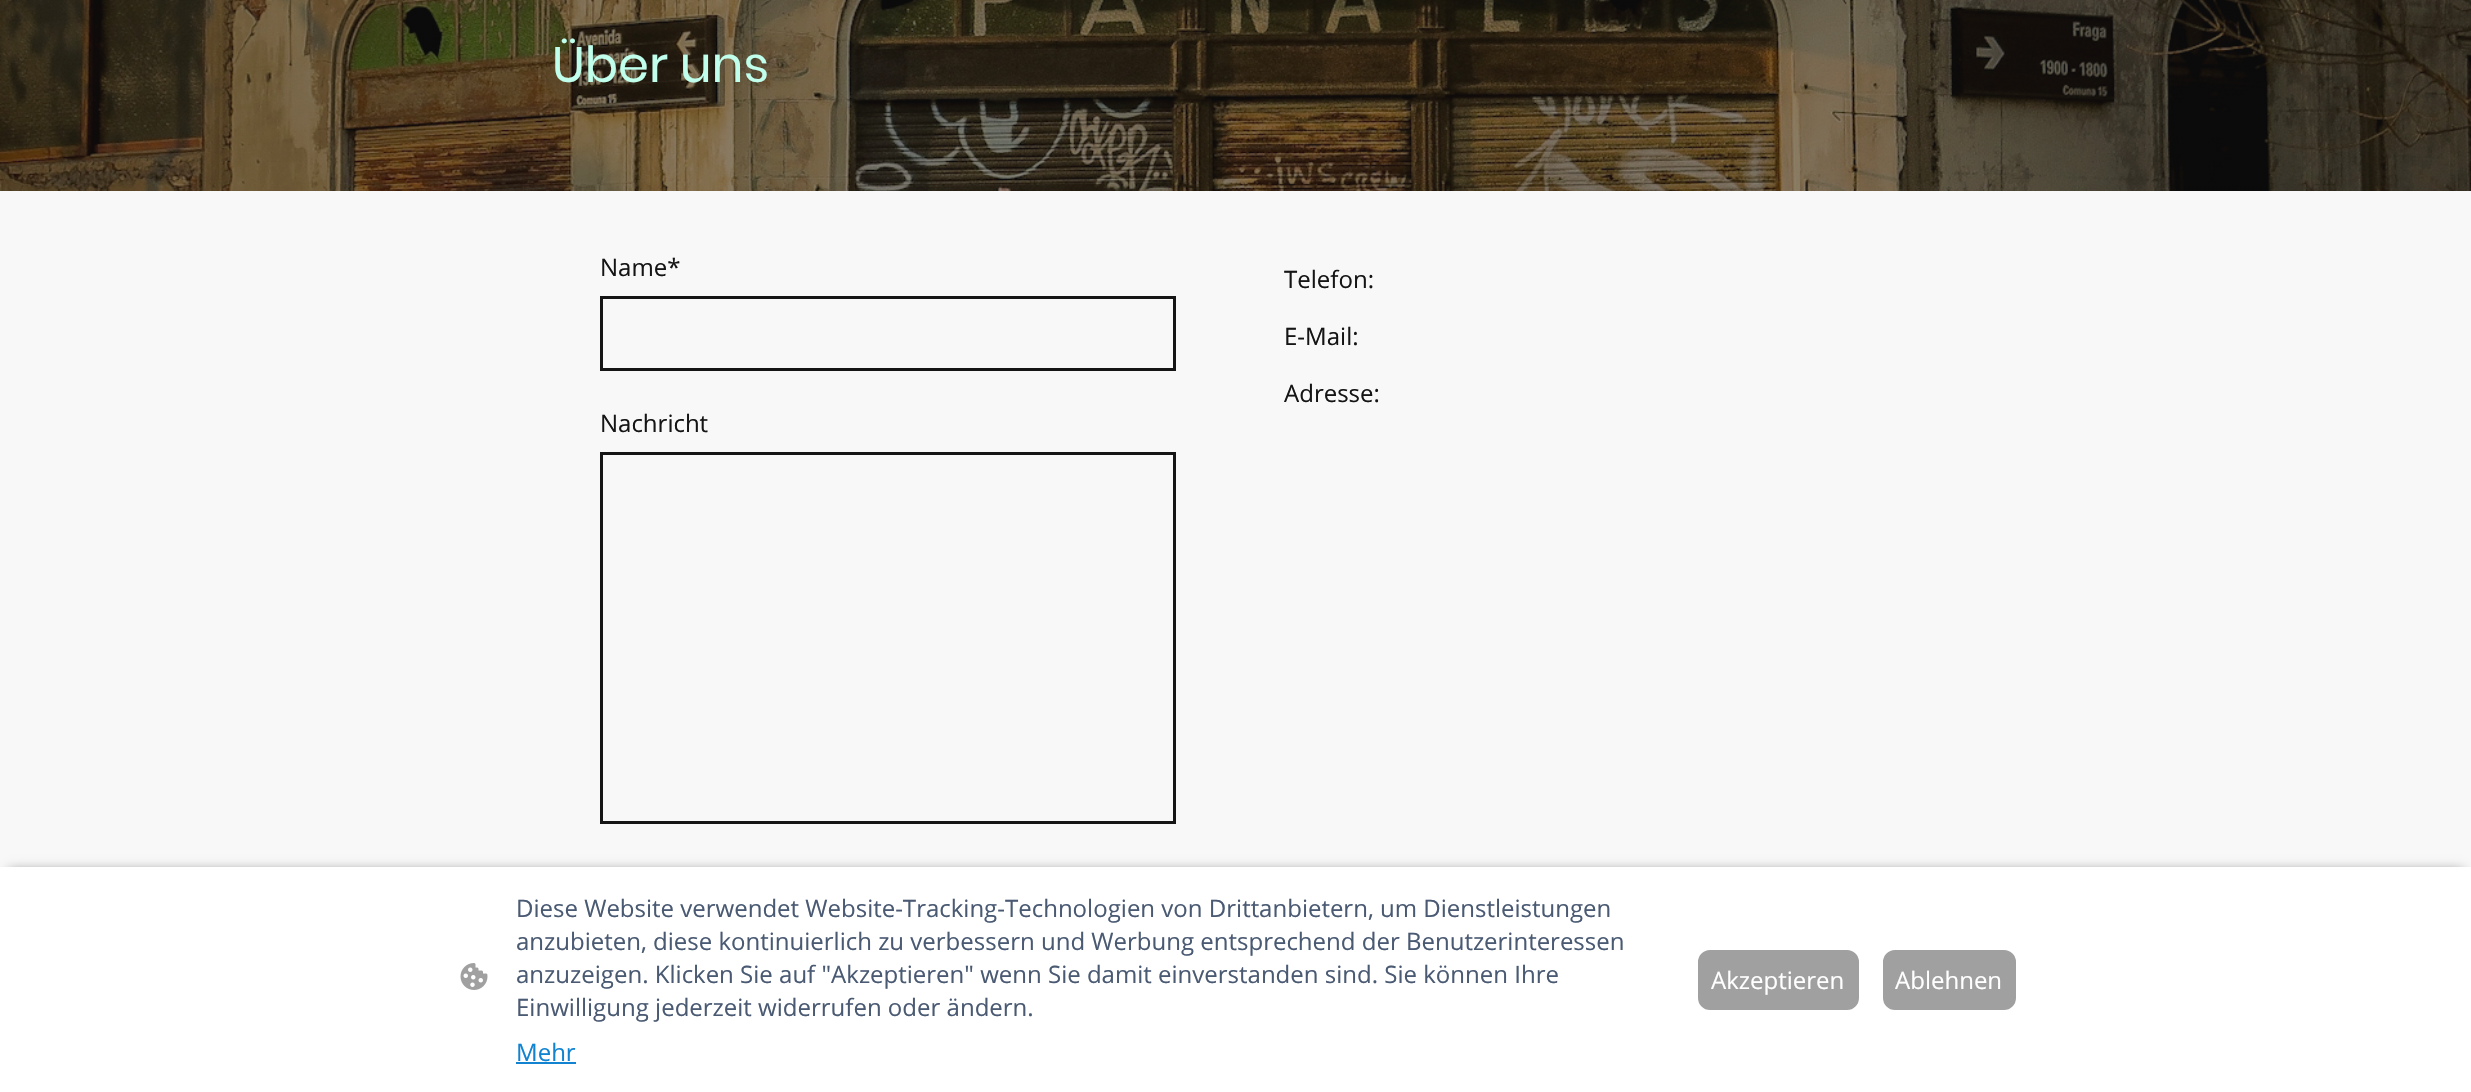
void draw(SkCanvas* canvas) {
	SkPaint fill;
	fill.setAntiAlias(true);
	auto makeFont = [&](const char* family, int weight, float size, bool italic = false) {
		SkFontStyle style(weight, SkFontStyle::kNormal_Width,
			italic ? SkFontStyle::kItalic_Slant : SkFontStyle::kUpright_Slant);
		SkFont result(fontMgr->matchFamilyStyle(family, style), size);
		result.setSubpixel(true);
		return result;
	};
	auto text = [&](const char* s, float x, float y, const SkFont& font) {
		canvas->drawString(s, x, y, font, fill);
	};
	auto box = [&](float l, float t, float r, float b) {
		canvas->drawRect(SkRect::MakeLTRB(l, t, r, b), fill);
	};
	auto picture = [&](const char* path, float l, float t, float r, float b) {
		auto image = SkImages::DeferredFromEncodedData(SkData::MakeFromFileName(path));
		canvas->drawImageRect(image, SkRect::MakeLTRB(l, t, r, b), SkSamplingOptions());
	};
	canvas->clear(0xFFFFFFFF);
	picture("image0.png", 0, 0, 2471, 191);
	fill.setColor(0xFFF8F8F8);
	box(0, 191, 2471, 867);
	fill.setStyle(SkPaint::kStroke_Style);
	fill.setStrokeWidth(3);
	fill.setColor(0xFF151515);
	canvas->drawRect(SkRect::MakeLTRB(601.5f, 297.5f, 1174.5f, 369.5f), fill);
	canvas->drawRect(SkRect::MakeLTRB(601.5f, 453.5f, 1174.5f, 822.5f), fill);
	fill.setStyle(SkPaint::kFill_Style);
	fill.setColor(0xA1000000);
	fill.setMaskFilter(SkMaskFilter::MakeBlur(kNormal_SkBlurStyle, 6));
	canvas->drawRect(SkRect::MakeLTRB(9, 872, 2463, 1079), fill);
	fill.setMaskFilter(nullptr);
	fill.setColor(0xFFFFFFFF);
	box(0, 867, 2471, 1092);
	picture("image1.png", 460, 963, 488, 990);
	fill.setColor(0xFF1183D1);
	box(516, 1062, 576, 1064);
	fill.setColor(0xFFA0A0A0);
	canvas->drawRoundRect(SkRect::MakeLTRB(1699, 951, 1858, 1009), 11, 11, fill);
	fill.setStyle(SkPaint::kStroke_Style);
	fill.setStrokeWidth(2);
	canvas->drawRoundRect(SkRect::MakeLTRB(1699, 951, 1858, 1009), 11, 11, fill);
	fill.setStyle(SkPaint::kFill_Style);
	canvas->drawRoundRect(SkRect::MakeLTRB(1884, 951, 2015, 1009), 11, 11, fill);
	fill.setStyle(SkPaint::kStroke_Style);
	canvas->drawRoundRect(SkRect::MakeLTRB(1884, 951, 2015, 1009), 11, 11, fill);
	auto font1 = makeFont("Poppins", 400, 49.5f);
	fill.setStyle(SkPaint::kFill_Style);
	fill.setColor(0xFFC1FFED);
	text("Über uns", 552, 82, font1);
	auto font2 = makeFont("Open Sans", 400, 24);
	fill.setColor(0xFF151515);
	text("Name*", 600, 276, font2);
	text("Nachricht", 600, 432, font2);
	text("Telefon:", 1284, 288, font2);
	text("E-Mail:", 1284, 345, font2);
	text("Adresse:", 1284, 402, font2);
	fill.setColor(0xFF4A5A73);
	text("Diese Website verwendet Website-Tracking-Technologien von Drittanbietern, um Dienstleistungen", 516, 917, font2);
	text("anzubieten, diese kontinuierlich zu verbessern und Werbung entsprechend der Benutzerinteressen", 516, 950, font2);
	text("anzuzeigen. Klicken Sie auf \"Akzeptieren\" wenn Sie damit einverstanden sind. Sie können Ihre", 516, 983, font2);
	text("Einwilligung jederzeit widerrufen oder ändern.", 516, 1016, font2);
	fill.setColor(0xFF1183D1);
	text("Mehr", 516, 1061, font2);
	fill.setColor(0xFFFFFFFF);
	text("Akzeptieren", 1711, 989, font2);
	text("Ablehnen", 1895, 989, font2);
}
